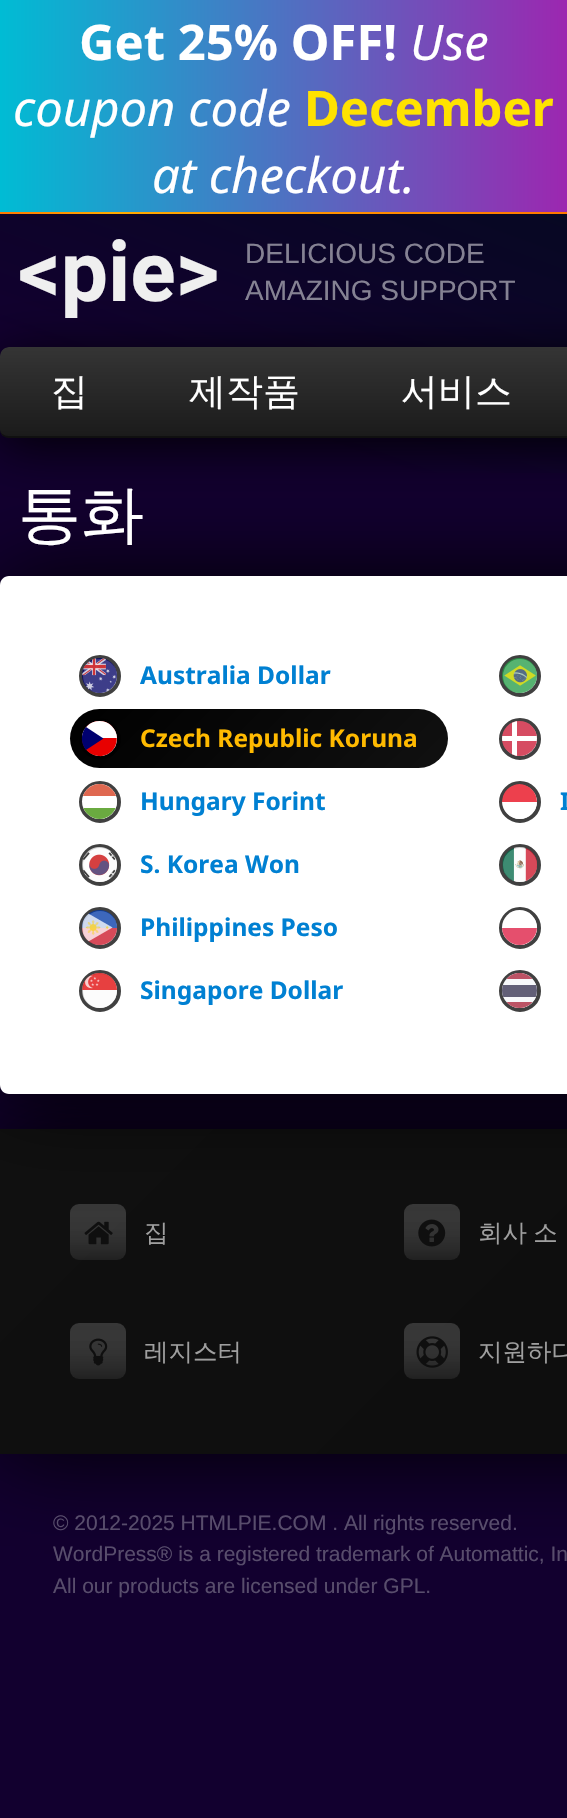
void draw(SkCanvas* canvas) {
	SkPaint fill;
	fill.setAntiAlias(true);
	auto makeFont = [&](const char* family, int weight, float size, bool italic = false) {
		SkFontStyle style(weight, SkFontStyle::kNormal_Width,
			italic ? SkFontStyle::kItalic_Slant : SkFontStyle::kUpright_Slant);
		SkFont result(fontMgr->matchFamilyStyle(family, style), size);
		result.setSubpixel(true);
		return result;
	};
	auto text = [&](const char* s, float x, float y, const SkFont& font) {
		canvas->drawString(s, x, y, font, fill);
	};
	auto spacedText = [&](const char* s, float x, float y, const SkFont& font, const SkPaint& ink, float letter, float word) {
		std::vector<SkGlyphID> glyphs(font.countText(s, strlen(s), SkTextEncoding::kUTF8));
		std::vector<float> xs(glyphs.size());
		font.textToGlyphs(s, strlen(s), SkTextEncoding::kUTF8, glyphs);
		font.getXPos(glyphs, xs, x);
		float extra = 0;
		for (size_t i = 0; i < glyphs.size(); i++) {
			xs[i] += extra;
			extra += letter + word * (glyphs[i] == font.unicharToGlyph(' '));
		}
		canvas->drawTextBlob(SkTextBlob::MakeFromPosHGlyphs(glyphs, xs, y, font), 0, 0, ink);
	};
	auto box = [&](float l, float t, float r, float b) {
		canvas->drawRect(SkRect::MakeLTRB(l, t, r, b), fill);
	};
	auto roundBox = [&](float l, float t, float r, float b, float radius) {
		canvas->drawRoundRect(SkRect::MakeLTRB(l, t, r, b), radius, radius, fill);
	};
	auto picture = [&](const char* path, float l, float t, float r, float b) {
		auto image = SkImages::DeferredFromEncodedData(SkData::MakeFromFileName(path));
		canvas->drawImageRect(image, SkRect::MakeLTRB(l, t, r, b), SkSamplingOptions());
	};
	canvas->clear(0xFF12002F);
	{
		const SkColor colors[] = {0xFF00BCD4, 0xFF9C27B0};
		const float stops[] = {0, 1};
		const SkPoint ends[] = {{0, 107}, {567, 107}};
		fill.setShader(SkGradientShader::MakeLinear(ends, colors, stops, 2, SkTileMode::kClamp));
		fill.setAlpha(255);
	}
	box(0, 0, 567, 212);
	{
		const SkColor colors[] = {0xFFFF7700, 0xFFFFAA00, 0xFFFF7700};
		const float stops[] = {0, 0.2f, 1};
		const SkPoint ends[] = {{0, 213}, {567, 213}};
		fill.setShader(SkGradientShader::MakeLinear(ends, colors, stops, 3, SkTileMode::kClamp));
		fill.setAlpha(255);
	}
	box(0, 212, 567, 214);
	{
		const SkColor colors[] = {0xFF12002F, 0xFF12002F, 0xFF000D1B};
		const float stops[] = {0, 0.5f, 1};
		const SkPoint ends[] = {{110, 915}, {457, -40}};
		fill.setShader(SkGradientShader::MakeLinear(ends, colors, stops, 3, SkTileMode::kClamp));
		fill.setAlpha(255);
	}
	box(0, 214, 567, 473);
	fill.setShader(nullptr);
	fill.setColor(0xE6000000);
	fill.setMaskFilter(SkMaskFilter::MakeBlur(kNormal_SkBlurStyle, 26));
	canvas->drawRoundRect(SkRect::MakeLTRB(0, 355, 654, 446), 9, 9, fill);
	fill.setMaskFilter(nullptr);
	canvas->save();
	canvas->clipPath(SkPathBuilder().moveTo(9, 347).lineTo(2231, 347).cubicTo(2236, 347, 2240, 351, 2240, 356).lineTo(2240, 429).cubicTo(2240, 434, 2236, 438, 2231, 438).lineTo(9, 438).cubicTo(4, 438, 0, 434, 0, 429).lineTo(0, 356).cubicTo(0, 351, 4, 347, 9, 347).close().detach(), true);
	{
		const SkColor colors[] = {0xFF353535, 0xFF1B1B1B};
		const float stops[] = {0, 1};
		const SkPoint ends[] = {{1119, 346}, {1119, 436}};
		fill.setShader(SkGradientShader::MakeLinear(ends, colors, stops, 2, SkTileMode::kClamp));
		fill.setAlpha(255);
	}
	canvas->drawPath(SkPathBuilder().moveTo(9, 347).lineTo(567, 347).lineTo(567, 436).lineTo(0, 436).lineTo(0, 356).cubicTo(0, 351, 4, 347, 9, 347).close().detach(), fill);
	canvas->restore();
	fill.setShader(nullptr);
	fill.setColor(0xFF101010);
	canvas->drawPath(SkPathBuilder(SkPathFillType::kEvenOdd).moveTo(9, 346).lineTo(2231, 346).cubicTo(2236, 346, 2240, 350, 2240, 355).lineTo(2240, 429).cubicTo(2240, 434, 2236, 438, 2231, 438).lineTo(9, 438).cubicTo(4, 438, 0, 434, 0, 429).lineTo(0, 355).cubicTo(0, 350, 4, 346, 9, 346).close().moveTo(9, 346).lineTo(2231, 346).cubicTo(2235, 346, 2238, 350, 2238, 355).lineTo(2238, 429).cubicTo(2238, 433, 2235, 436, 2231, 436).lineTo(9, 436).cubicTo(4, 436, 0, 433, 0, 429).lineTo(0, 355).cubicTo(0, 350, 4, 346, 9, 346).close().detach(), fill);
	fill.setColor(0xF2000000);
	fill.setMaskFilter(SkMaskFilter::MakeBlur(kNormal_SkBlurStyle, 44));
	canvas->drawRect(SkRect::MakeLTRB(0, 1129, 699, 1454), fill);
	fill.setMaskFilter(nullptr);
	{
		const SkColor colors[] = {0xFF101010, 0xFF0A0A0A};
		const float stops[] = {0, 1};
		const SkPoint ends[] = {{479, 650}, {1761, 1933}};
		fill.setShader(SkGradientShader::MakeLinear(ends, colors, stops, 2, SkTileMode::kClamp));
		fill.setAlpha(255);
	}
	box(0, 1129, 567, 1454);
	fill.setShader(nullptr);
	fill.setColor(0xF2000000);
	fill.setMaskFilter(SkMaskFilter::MakeBlur(kNormal_SkBlurStyle, 44));
	canvas->drawRoundRect(SkRect::MakeLTRB(0, 576, 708, 1094), 9, 9, fill);
	fill.setMaskFilter(nullptr);
	fill.setColor(0xFFFFFFFF);
	canvas->drawPath(SkPathBuilder().moveTo(9, 576).lineTo(567, 576).lineTo(567, 1094).lineTo(9, 1094).cubicTo(4, 1094, 0, 1090, 0, 1085).lineTo(0, 585).cubicTo(0, 580, 4, 576, 9, 576).close().detach(), fill);
	fill.setColor(0xFFF2F2F2);
	canvas->drawCircle(100, 676, 19, fill);
	fill.setStyle(SkPaint::kStroke_Style);
	fill.setStrokeWidth(4);
	fill.setColor(0xFF404040);
	canvas->drawCircle(100, 676, 19, fill);
	picture("image0.png", 82, 658, 117, 693);
	fill.setStyle(SkPaint::kFill_Style);
	fill.setColor(0xFFF2F2F2);
	canvas->drawCircle(520, 676, 19, fill);
	fill.setStyle(SkPaint::kStroke_Style);
	fill.setColor(0xFF404040);
	canvas->drawCircle(520, 676, 19, fill);
	picture("image1.png", 502, 658, 537, 693);
	fill.setStyle(SkPaint::kFill_Style);
	{
		const SkColor colors[] = {0xFF000000, 0xFF111111};
		const float stops[] = {0, 1};
		const SkPoint ends[] = {{150, 629}, {368, 848}};
		fill.setShader(SkGradientShader::MakeLinear(ends, colors, stops, 2, SkTileMode::kClamp));
		fill.setAlpha(255);
	}
	roundBox(70, 709, 448, 768, 29.5f);
	fill.setShader(nullptr);
	fill.setColor(0xFFEEEEEE);
	canvas->drawCircle(100, 739, 19, fill);
	fill.setStyle(SkPaint::kStroke_Style);
	fill.setColor(0xFF000000);
	canvas->drawCircle(100, 739, 19, fill);
	fill.setStyle(SkPaint::kFill_Style);
	fill.setColor(0xFFE80000);
	canvas->drawPath(SkPathBuilder().moveTo(99.5f, 721).cubicTo(78, 721, 75.5f, 753.5f, 98.5f, 756).cubicTo(101.5f, 756.5f, 104.5f, 755.5f, 107, 754.5f).cubicTo(123.5f, 746.5f, 118, 721, 99.5f, 721).close().detach(), fill);
	fill.setColor(0xFFFFFFFF);
	canvas->drawPath(SkPathBuilder().moveTo(99.5f, 721).cubicTo(90, 721, 82, 728.5f, 82, 738).lineTo(117, 738).cubicTo(116.5f, 728.5f, 109, 721, 99.5f, 721).close().detach(), fill);
	fill.setColor(0xFF00006F);
	canvas->drawPath(SkPathBuilder().moveTo(86, 727).lineTo(103.5f, 738.5f).lineTo(86, 750).cubicTo(80.5f, 743.5f, 80.5f, 733.5f, 86, 727).close().detach(), fill);
	fill.setColor(0xFFF2F2F2);
	canvas->drawCircle(520, 739, 19, fill);
	fill.setStyle(SkPaint::kStroke_Style);
	fill.setColor(0xFF404040);
	canvas->drawCircle(520, 739, 19, fill);
	fill.setStyle(SkPaint::kFill_Style);
	fill.setColor(0xFFD64C62);
	canvas->drawCircle(519.5f, 738.5f, 17.5f, fill);
	canvas->save();
	canvas->clipPath(SkPathBuilder().moveTo(519.5f, 721).cubicTo(529, 721, 537, 729, 537, 738.5f).cubicTo(537, 748, 529, 756, 519.5f, 756).cubicTo(510, 756, 502, 748, 502, 738.5f).cubicTo(502, 729, 510, 721, 519.5f, 721).close().detach(), true);
	fill.setColor(0xFFFFFFFF);
	box(512, 721, 517, 756);
	box(502, 736, 537, 741);
	canvas->restore();
	fill.setColor(0xFFF2F2F2);
	canvas->drawCircle(100, 802, 19, fill);
	fill.setStyle(SkPaint::kStroke_Style);
	fill.setColor(0xFF404040);
	canvas->drawCircle(100, 802, 19, fill);
	fill.setStyle(SkPaint::kFill_Style);
	fill.setColor(0xFFFFFFFF);
	canvas->drawCircle(99.5f, 801.5f, 17.5f, fill);
	canvas->save();
	canvas->clipPath(SkPathBuilder().moveTo(99.5f, 784).cubicTo(109, 784, 117, 792, 117, 801.5f).cubicTo(117, 811, 109, 819, 99.5f, 819).cubicTo(90, 819, 82, 811, 82, 801.5f).cubicTo(82, 792, 90, 784, 99.5f, 784).close().detach(), true);
	fill.setColor(0xFF6AAA40);
	box(83, 808, 116, 819);
	fill.setColor(0xFFDF6850);
	box(83, 784, 116, 796);
	canvas->restore();
	fill.setColor(0xFFF2F2F2);
	canvas->drawCircle(520, 802, 19, fill);
	fill.setStyle(SkPaint::kStroke_Style);
	fill.setColor(0xFF404040);
	canvas->drawCircle(520, 802, 19, fill);
	canvas->save();
	canvas->clipPath(SkPathBuilder().moveTo(519.5f, 784).cubicTo(529, 784, 537, 792, 537, 801.5f).cubicTo(537, 811, 529, 819, 519.5f, 819).cubicTo(510, 819, 502, 811, 502, 801.5f).cubicTo(502, 792, 510, 784, 519.5f, 784).close().detach(), true);
	fill.setStyle(SkPaint::kFill_Style);
	fill.setColor(0xFFED404D);
	canvas->drawPath(SkPathBuilder().moveTo(519.5f, 784).cubicTo(529, 784, 537, 792, 537, 801.5f).lineTo(537, 802).lineTo(502, 802).lineTo(502, 801.5f).cubicTo(502, 792, 510, 784, 519.5f, 784).close().detach(), fill);
	fill.setColor(0xFFFFFFFF);
	box(502, 802, 537, 819);
	canvas->restore();
	fill.setColor(0xFFF2F2F2);
	canvas->drawCircle(100, 865, 19, fill);
	fill.setStyle(SkPaint::kStroke_Style);
	fill.setColor(0xFF404040);
	canvas->drawCircle(100, 865, 19, fill);
	picture("image2.png", 82, 847, 117, 882);
	fill.setStyle(SkPaint::kFill_Style);
	fill.setColor(0xFFF2F2F2);
	canvas->drawCircle(520, 865, 19, fill);
	fill.setStyle(SkPaint::kStroke_Style);
	fill.setColor(0xFF404040);
	canvas->drawCircle(520, 865, 19, fill);
	picture("image3.png", 502, 847, 537, 882);
	fill.setStyle(SkPaint::kFill_Style);
	fill.setColor(0xFFF2F2F2);
	canvas->drawCircle(100, 928, 19, fill);
	fill.setStyle(SkPaint::kStroke_Style);
	fill.setColor(0xFF404040);
	canvas->drawCircle(100, 928, 19, fill);
	picture("image4.png", 82, 910, 117, 945);
	fill.setStyle(SkPaint::kFill_Style);
	fill.setColor(0xFFF2F2F2);
	canvas->drawCircle(520, 928, 19, fill);
	fill.setStyle(SkPaint::kStroke_Style);
	fill.setColor(0xFF404040);
	canvas->drawCircle(520, 928, 19, fill);
	fill.setStyle(SkPaint::kFill_Style);
	fill.setColor(0xFFFFFFFF);
	canvas->drawCircle(519.5f, 927.5f, 17.5f, fill);
	canvas->save();
	canvas->clipPath(SkPathBuilder().moveTo(519.5f, 910).cubicTo(529, 910, 537, 918, 537, 927.5f).cubicTo(537, 937, 529, 945, 519.5f, 945).cubicTo(510, 945, 502, 937, 502, 927.5f).cubicTo(502, 918, 510, 910, 519.5f, 910).close().detach(), true);
	fill.setColor(0xFFE54F6D);
	box(502, 928, 537, 945);
	canvas->restore();
	fill.setColor(0xFFF2F2F2);
	canvas->drawCircle(100, 991, 19, fill);
	fill.setStyle(SkPaint::kStroke_Style);
	fill.setColor(0xFF404040);
	canvas->drawCircle(100, 991, 19, fill);
	picture("image5.png", 82, 973, 117, 1008);
	fill.setStyle(SkPaint::kFill_Style);
	fill.setColor(0xFFF2F2F2);
	canvas->drawCircle(520, 991, 19, fill);
	fill.setStyle(SkPaint::kStroke_Style);
	fill.setColor(0xFF404040);
	canvas->drawCircle(520, 991, 19, fill);
	fill.setStyle(SkPaint::kFill_Style);
	fill.setColor(0xFFF7F8FA);
	canvas->drawCircle(519.5f, 990.5f, 17.5f, fill);
	canvas->save();
	canvas->clipPath(SkPathBuilder().moveTo(519.5f, 973).cubicTo(529, 973, 537, 981, 537, 990.5f).cubicTo(537, 1000, 529, 1008, 519.5f, 1008).cubicTo(510, 1008, 502, 1000, 502, 990.5f).cubicTo(502, 981, 510, 973, 519.5f, 973).close().detach(), true);
	fill.setColor(0xFF625F77);
	box(502, 985, 537, 997);
	canvas->restore();
	fill.setColor(0xFFBC5365);
	canvas->drawPath(SkPathBuilder(SkPathFillType::kEvenOdd).moveTo(532.5f, 1002).cubicTo(526, 1010, 513, 1010, 506.5f, 1002).close().moveTo(519.5f, 973).cubicTo(525, 973, 529.5f, 975.5f, 532.5f, 979).lineTo(506.5f, 979).cubicTo(509.5f, 975.5f, 514, 973, 519.5f, 973).close().detach(), fill);
	{
		const SkColor colors[] = {0x80323232, 0x40AAAAAA};
		const float stops[] = {0, 1};
		const SkPoint ends[] = {{98, 1260}, {98, 1204}};
		fill.setShader(SkGradientShader::MakeLinear(ends, colors, stops, 2, SkTileMode::kClamp));
		fill.setAlpha(255);
	}
	roundBox(70, 1204, 126, 1260, 9);
	picture("image6.png", 84, 1221, 113, 1245);
	{
		const SkColor colors[] = {0x80323232, 0x40AAAAAA};
		const float stops[] = {0, 1};
		const SkPoint ends[] = {{432, 1260}, {432, 1204}};
		fill.setShader(SkGradientShader::MakeLinear(ends, colors, stops, 2, SkTileMode::kClamp));
		fill.setAlpha(255);
	}
	roundBox(404, 1204, 460, 1260, 9);
	picture("image7.png", 418, 1219, 446, 1247);
	{
		const SkColor colors[] = {0x80323232, 0x40AAAAAA};
		const float stops[] = {0, 1};
		const SkPoint ends[] = {{98, 1379}, {98, 1323}};
		fill.setShader(SkGradientShader::MakeLinear(ends, colors, stops, 2, SkTileMode::kClamp));
		fill.setAlpha(255);
	}
	roundBox(70, 1323, 126, 1379, 9);
	picture("image8.png", 89, 1338, 108, 1366);
	{
		const SkColor colors[] = {0x80323232, 0x40AAAAAA};
		const float stops[] = {0, 1};
		const SkPoint ends[] = {{432, 1379}, {432, 1323}};
		fill.setShader(SkGradientShader::MakeLinear(ends, colors, stops, 2, SkTileMode::kClamp));
		fill.setAlpha(255);
	}
	roundBox(404, 1323, 460, 1379, 9);
	picture("image9.png", 416, 1336, 448, 1368);
	auto font1 = makeFont("Noto Sans", 700, 49);
	fill.setShader(nullptr);
	fill.setColor(0xFFFFFFFF);
	text("Get 25% OFF!", 79, 60, font1);
	auto font2 = makeFont("Noto Sans", 400, 49, true);
	text("Use", 410, 60, font2);
	text("coupon code", 13, 126, font2);
	fill.setColor(0xFFFFE200);
	text("December", 304, 126, font1);
	fill.setColor(0xFFFFFFFF);
	text("at checkout.", 152, 193, font2);
	auto font3 = makeFont("Roboto", 700, 84);
	fill.setColor(0xFFEFEFEF);
	text("<pie>", 18, 301, font3);
	auto font4 = makeFont("Liberation Sans", 400, 28);
	fill.setColor(0xFF858293);
	text("DELICIOUS CODE", 245, 263, font4);
	text("AMAZING SUPPORT", 245, 300, font4);
	auto font5 = makeFont("WenQuanYi Zen Hei", 500, 37);
	fill.setColor(0xFFFFFFFF);
	text("집", 51, 404, font5);
	text("제작품", 189, 404, font5);
	text("서비스", 401, 404, font5);
	auto font6 = makeFont("WenQuanYi Zen Hei", 500, 63);
	text("통화", 18, 536, font6);
	auto font7 = makeFont("Noto Sans", 700, 24.5f);
	fill.setColor(0xFF0080D2);
	text("Australia Dollar", 140, 684, font7);
	fill.setColor(0xFFFFBA00);
	text("Czech Republic Koruna", 140, 747, font7);
	fill.setColor(0xFF0080D2);
	text("Hungary Forint", 140, 810, font7);
	text("I", 560, 810, font7);
	text("S. Korea Won", 140, 873, font7);
	text("Philippines Peso", 140, 936, font7);
	text("Singapore Dollar", 140, 999, font7);
	auto font8 = makeFont("WenQuanYi Zen Hei", 500, 24.5f);
	fill.setColor(0xFF9F9F9F);
	text("집", 144, 1241, font8);
	spacedText("회사 소", 478, 1241, font8, fill, 0, -1);
	text("레지스터", 144, 1360, font8);
	text("지원하다", 478, 1360, font8);
	auto font9 = makeFont("Liberation Sans", 400, 21);
	fill.setColor(0xFF584D6C);
	text("© 2012-2025 HTMLPIE.COM . All rights reserved.", 53, 1530, font9);
	text("WordPress® is a registered trademark of Automattic, In", 53, 1561, font9);
	text("All our products are licensed under GPL.", 53, 1593, font9);
}
